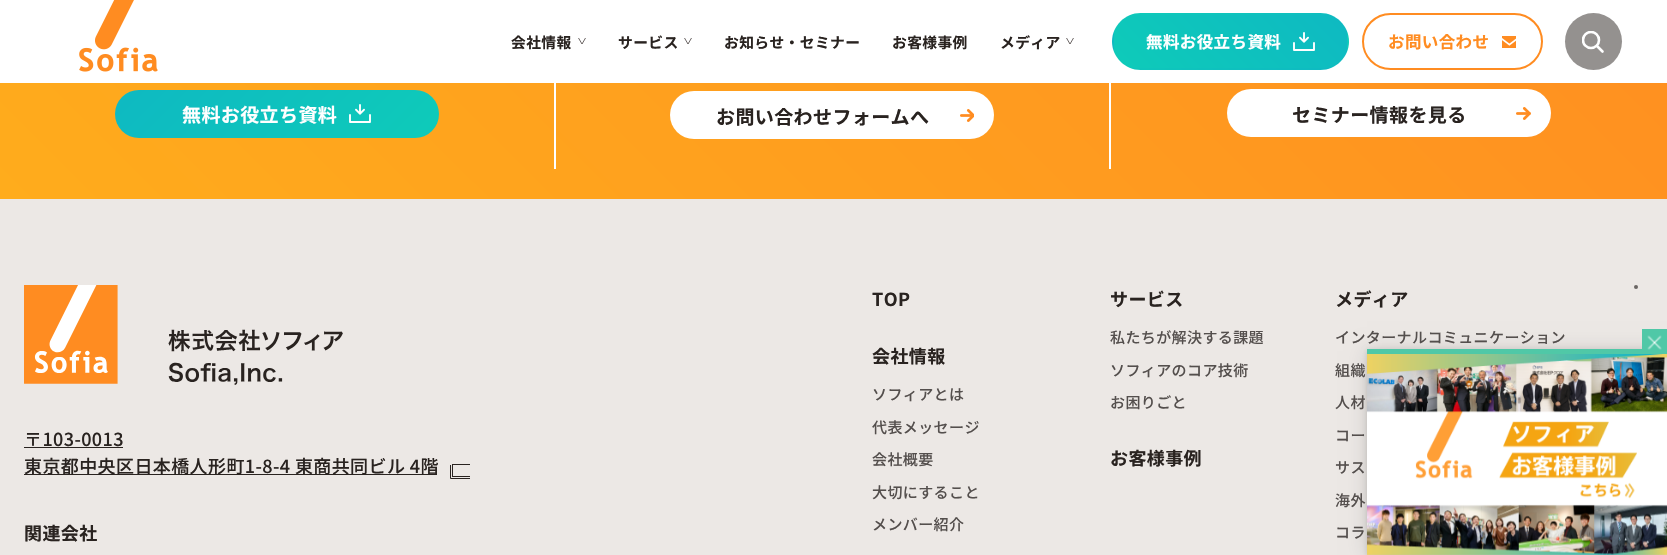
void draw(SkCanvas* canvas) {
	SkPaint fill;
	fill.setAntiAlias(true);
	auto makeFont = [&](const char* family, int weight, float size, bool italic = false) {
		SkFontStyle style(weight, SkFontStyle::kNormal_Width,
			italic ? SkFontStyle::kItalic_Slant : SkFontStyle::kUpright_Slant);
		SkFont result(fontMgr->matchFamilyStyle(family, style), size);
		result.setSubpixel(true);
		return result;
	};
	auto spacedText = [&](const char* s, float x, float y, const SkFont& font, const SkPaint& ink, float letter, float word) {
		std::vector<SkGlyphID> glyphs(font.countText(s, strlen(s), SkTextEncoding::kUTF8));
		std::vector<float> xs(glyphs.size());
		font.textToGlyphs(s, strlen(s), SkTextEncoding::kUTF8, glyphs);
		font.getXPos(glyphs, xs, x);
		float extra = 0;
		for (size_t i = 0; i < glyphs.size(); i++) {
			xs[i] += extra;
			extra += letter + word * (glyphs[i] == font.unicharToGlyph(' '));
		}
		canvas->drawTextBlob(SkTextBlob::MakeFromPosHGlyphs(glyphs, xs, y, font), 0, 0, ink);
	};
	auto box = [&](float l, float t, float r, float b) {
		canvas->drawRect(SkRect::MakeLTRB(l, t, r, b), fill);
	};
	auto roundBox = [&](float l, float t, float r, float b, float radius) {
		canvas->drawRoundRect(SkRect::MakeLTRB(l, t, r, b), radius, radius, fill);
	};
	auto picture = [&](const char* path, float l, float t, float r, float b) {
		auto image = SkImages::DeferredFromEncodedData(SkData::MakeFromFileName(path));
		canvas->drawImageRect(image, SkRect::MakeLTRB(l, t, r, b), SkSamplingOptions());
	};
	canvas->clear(0xFFFFFFFF);
	picture("image0.png", 79, 0, 158, 72);
	fill.setStyle(SkPaint::kStroke_Style);
	fill.setStrokeWidth(0.7f);
	fill.setColor(0xFF292320);
	canvas->drawPath(SkPathBuilder().moveTo(578.5f, 38).lineTo(582, 44).lineTo(585.5f, 38).detach(), fill);
	canvas->drawPath(SkPathBuilder().moveTo(684.5f, 38).lineTo(688, 44).lineTo(691.5f, 38).detach(), fill);
	canvas->drawPath(SkPathBuilder().moveTo(1066.5f, 38).lineTo(1070, 44).lineTo(1073.5f, 38).detach(), fill);
	canvas->save();
	canvas->clipPath(SkPathBuilder().moveTo(1140.5f, 13).lineTo(1320.5f, 13).cubicTo(1336, 13, 1349, 26, 1349, 41.5f).cubicTo(1349, 57, 1336, 70, 1320.5f, 70).lineTo(1140.5f, 70).cubicTo(1125, 70, 1112, 57, 1112, 41.5f).cubicTo(1112, 26, 1125, 13, 1140.5f, 13).close().detach(), true);
	fill.setStyle(SkPaint::kFill_Style);
	{
		const SkColor colors[] = {0xFF0EB9C2, 0xFF0ECBB9};
		const float stops[] = {0, 1};
		const SkPoint ends[] = {{1302, -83}, {1159, 60}};
		fill.setShader(SkGradientShader::MakeLinear(ends, colors, stops, 2, SkTileMode::kClamp));
		fill.setAlpha(255);
	}
	box(1130, 13, 1331, 15);
	{
		const SkColor colors[] = {0xFF0EB9C2, 0xFF0ECBB9};
		const float stops[] = {0, 1};
		const SkPoint ends[] = {{1069, -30}, {926, 113}};
		fill.setShader(SkGradientShader::MakeLinear(ends, colors, stops, 2, SkTileMode::kClamp));
		fill.setAlpha(255);
	}
	box(1112, 31, 1114, 52);
	{
		const SkColor colors[] = {0xFF0EB9C2, 0xFF0ECBB9};
		const float stops[] = {0, 1};
		const SkPoint ends[] = {{1302, -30}, {1159, 113}};
		fill.setShader(SkGradientShader::MakeLinear(ends, colors, stops, 2, SkTileMode::kClamp));
		fill.setAlpha(255);
	}
	box(1114, 15, 1347, 68);
	{
		const SkColor colors[] = {0xFF0EB9C2, 0xFF0ECBB9};
		const float stops[] = {0, 1};
		const SkPoint ends[] = {{1535, -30}, {1392, 113}};
		fill.setShader(SkGradientShader::MakeLinear(ends, colors, stops, 2, SkTileMode::kClamp));
		fill.setAlpha(255);
	}
	box(1347, 31, 1349, 52);
	{
		const SkColor colors[] = {0xFF0EB9C2, 0xFF0ECBB9};
		const float stops[] = {0, 1};
		const SkPoint ends[] = {{1302, 23}, {1159, 166}};
		fill.setShader(SkGradientShader::MakeLinear(ends, colors, stops, 2, SkTileMode::kClamp));
		fill.setAlpha(255);
	}
	box(1130, 68, 1331, 70);
	canvas->restore();
	fill.setStyle(SkPaint::kStroke_Style);
	fill.setStrokeWidth(1.9f);
	fill.setStrokeCap(SkPaint::kRound_Cap);
	fill.setStrokeJoin(SkPaint::kRound_Join);
	fill.setShader(nullptr);
	fill.setColor(0xFFFFFFFF);
	canvas->drawPath(SkPathBuilder().moveTo(1314, 43).lineTo(1314, 50).lineTo(1294, 50).lineTo(1294, 43).detach(), fill);
	picture("image1.png", 1299, 32, 1309, 43);
	fill.setStrokeWidth(2);
	fill.setStrokeCap(SkPaint::kButt_Cap);
	fill.setStrokeJoin(SkPaint::kMiter_Join);
	fill.setColor(0xFFFF8C21);
	canvas->drawRoundRect(SkRect::MakeLTRB(1363, 14, 1542, 69), 27.5f, 27.5f, fill);
	picture("image2.png", 1502, 36, 1516, 48);
	fill.setStyle(SkPaint::kFill_Style);
	fill.setColor(0xFF94918F);
	canvas->drawCircle(1593.5f, 41.5f, 28.5f, fill);
	canvas->save();
	canvas->clipRect(SkRect::MakeLTRB(1582, 31, 1604, 53));
	fill.setStyle(SkPaint::kStroke_Style);
	fill.setStrokeWidth(2.6f);
	fill.setColor(0xFFFFFFFF);
	canvas->drawCircle(1591, 40, 8, fill);
	canvas->restore();
	fill.setStrokeCap(SkPaint::kRound_Cap);
	fill.setStrokeJoin(SkPaint::kRound_Join);
	canvas->drawPath(SkPathBuilder().moveTo(1597, 46).lineTo(1602.5f, 51.5f).detach(), fill);
	fill.setStyle(SkPaint::kFill_Style);
	{
		const SkColor colors[] = {0xFFFFAC1C, 0xFFFF8C21};
		const float stops[] = {0, 1};
		const SkPoint ends[] = {{311, 510}, {1356, -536}};
		fill.setShader(SkGradientShader::MakeLinear(ends, colors, stops, 2, SkTileMode::kClamp));
		fill.setAlpha(255);
	}
	box(0, 83, 1667, 199);
	fill.setShader(nullptr);
	fill.setColor(0xFFFFFFFF);
	box(554, 83, 556, 169);
	{
		const SkColor colors[] = {0xFF0EB9C2, 0xFF0ECBB9};
		const float stops[] = {0, 1};
		const SkPoint ends[] = {{184, 21}, {370, 207}};
		fill.setShader(SkGradientShader::MakeLinear(ends, colors, stops, 2, SkTileMode::kClamp));
		fill.setAlpha(255);
	}
	roundBox(115, 90, 439, 138, 24);
	fill.setStyle(SkPaint::kStroke_Style);
	fill.setStrokeWidth(1.9f);
	fill.setShader(nullptr);
	fill.setColor(0xFFFFFFFF);
	canvas->drawPath(SkPathBuilder().moveTo(370, 115).lineTo(370, 122).lineTo(350, 122).lineTo(350, 115).detach(), fill);
	picture("image3.png", 355, 104, 365, 115);
	fill.setStyle(SkPaint::kFill_Style);
	box(1109, 83, 1111, 169);
	roundBox(670, 91, 994, 139, 24);
	picture("image4.png", 960, 109, 974, 122);
	roundBox(1227, 89, 1551, 137, 24);
	picture("image5.png", 1516, 107, 1531, 120);
	fill.setColor(0xFFECE8E5);
	box(0, 199, 1667, 555);
	fill.setColor(0xFF6A6563);
	canvas->drawCircle(1636, 287, 2, fill);
	picture("image6.png", 24, 285, 343, 385);
	fill.setColor(0xFF292320);
	box(24, 447, 123, 448);
	box(24, 474, 437, 475);
	fill.setStyle(SkPaint::kStroke_Style);
	fill.setStrokeWidth(1);
	fill.setStrokeCap(SkPaint::kButt_Cap);
	fill.setStrokeJoin(SkPaint::kMiter_Join);
	canvas->drawPath(SkPathBuilder().moveTo(470, 478.5f).lineTo(450.5f, 478.5f).lineTo(450.5f, 465).detach(), fill);
	canvas->save();
	canvas->clipRect(SkRect::MakeLTRB(450, 464, 470, 479));
	canvas->drawRect(SkRect::MakeLTRB(452.5f, 464.5f, 470.5f, 476.5f), fill);
	canvas->restore();
	fill.setStyle(SkPaint::kFill_Style);
	fill.setColor(0x1F000000);
	fill.setMaskFilter(SkMaskFilter::MakeBlur(kNormal_SkBlurStyle, 2.5f));
	canvas->drawRect(SkRect::MakeLTRB(1367, 350, 1667, 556), fill);
	fill.setMaskFilter(nullptr);
	fill.setColor(0x24000000);
	fill.setMaskFilter(SkMaskFilter::MakeBlur(kNormal_SkBlurStyle, 10));
	canvas->drawRect(SkRect::MakeLTRB(1367, 351, 1667, 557), fill);
	fill.setMaskFilter(nullptr);
	fill.setColor(0xFF50C8A7);
	box(1367, 349, 1642, 354);
	box(1642, 329, 1667, 354);
	picture("image7.png", 1647, 335, 1662, 350);
	picture("image8.png", 1367, 354, 1667, 555);
	auto font1 = makeFont("Noto Sans JP", 700, 14.75f);
	fill.setColor(0xFF292320);
	spacedText("会社情報", 511, 48, font1, fill, 0.4f, 0);
	spacedText("サービス", 618, 48, font1, fill, 0.4f, 0);
	spacedText("お知らせ・セミナー", 724, 48, font1, fill, 0.4f, 0);
	spacedText("お客様事例", 892, 48, font1, fill, 0.4f, 0);
	spacedText("メディア", 1000, 48, font1, fill, 0.4f, 0);
	auto font2 = makeFont("Noto Sans JP", 700, 16.5f);
	fill.setColor(0xFFFFFFFF);
	spacedText("無料お役立ち資料", 1146, 48, font2, fill, 0.4f, 0);
	fill.setColor(0xFFFF8C21);
	spacedText("お問い合わせ", 1388, 48, font2, fill, 0.4f, 0);
	auto font3 = makeFont("Noto Sans JP", 700, 19);
	fill.setColor(0xFFFFFFFF);
	spacedText("無料お役立ち資料", 182, 122, font3, fill, 0.4f, 0);
	fill.setColor(0xFF292320);
	spacedText("お問い合わせフォームへ", 716, 124, font3, fill, 0.4f, 0);
	spacedText("セミナー情報を見る", 1292, 122, font3, fill, 0.4f, 0);
	auto font4 = makeFont("Noto Sans JP", 500, 18);
	spacedText("〒103-0013", 24, 446, font4, fill, 0.4f, 0);
	spacedText("東京都中央区日本橋人形町1-8-4 東商共同ビル 4階", 24, 473, font4, fill, 0.4f, 0);
	auto font5 = makeFont("Noto Sans JP", 700, 18);
	spacedText("関連会社", 24, 540, font5, fill, 0.4f, 0);
	spacedText("TOP", 872, 306, font5, fill, 0.4f, 0);
	spacedText("会社情報", 872, 363, font5, fill, 0.4f, 0);
	auto font6 = makeFont("Noto Sans JP", 500, 15);
	fill.setColor(0xFF544F4D);
	spacedText("ソフィアとは", 872, 400, font6, fill, 0.4f, 0);
	spacedText("代表メッセージ", 872, 433, font6, fill, 0.4f, 0);
	spacedText("会社概要", 872, 465, font6, fill, 0.4f, 0);
	spacedText("大切にすること", 872, 498, font6, fill, 0.4f, 0);
	spacedText("メンバー紹介", 872, 530, font6, fill, 0.4f, 0);
	fill.setColor(0xFF292320);
	spacedText("サービス", 1110, 306, font5, fill, 0.4f, 0);
	fill.setColor(0xFF544F4D);
	spacedText("私たちが解決する課題", 1110, 343, font6, fill, 0.4f, 0);
	spacedText("ソフィアのコア技術", 1110, 376, font6, fill, 0.4f, 0);
	spacedText("お困りごと", 1110, 408, font6, fill, 0.4f, 0);
	fill.setColor(0xFF292320);
	spacedText("お客様事例", 1110, 465, font5, fill, 0.4f, 0);
	spacedText("メディア", 1335, 306, font5, fill, 0.4f, 0);
	fill.setColor(0xFF544F4D);
	spacedText("インターナルコミュニケーション", 1335, 343, font6, fill, 0.4f, 0);
	spacedText("組織", 1335, 376, font6, fill, 0.4f, 0);
	spacedText("人材", 1335, 408, font6, fill, 0.4f, 0);
	spacedText("コー", 1335, 441, font6, fill, 0.4f, 0);
	spacedText("サス", 1335, 473, font6, fill, 0.4f, 0);
	spacedText("海外", 1335, 506, font6, fill, 0.4f, 0);
	spacedText("コラ", 1335, 538, font6, fill, 0.4f, 0);
}
